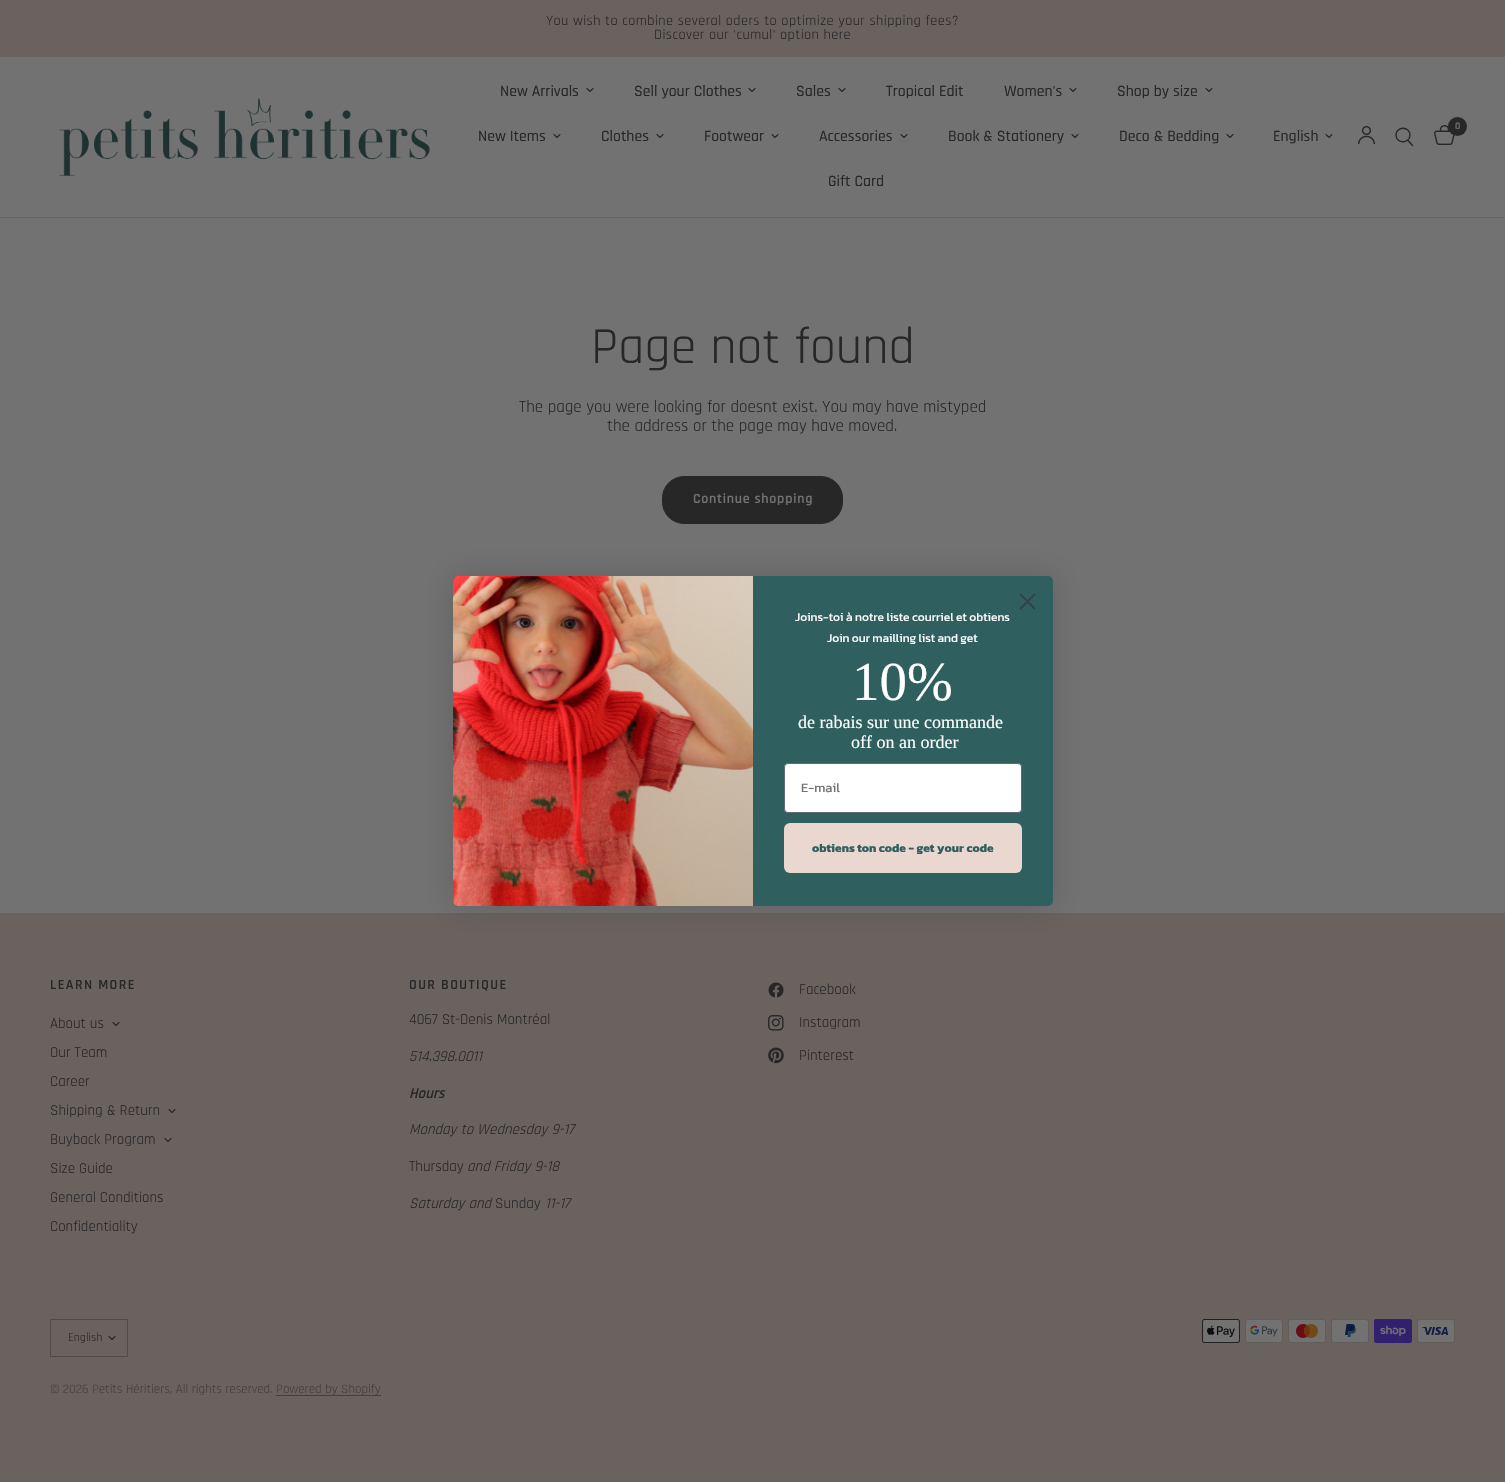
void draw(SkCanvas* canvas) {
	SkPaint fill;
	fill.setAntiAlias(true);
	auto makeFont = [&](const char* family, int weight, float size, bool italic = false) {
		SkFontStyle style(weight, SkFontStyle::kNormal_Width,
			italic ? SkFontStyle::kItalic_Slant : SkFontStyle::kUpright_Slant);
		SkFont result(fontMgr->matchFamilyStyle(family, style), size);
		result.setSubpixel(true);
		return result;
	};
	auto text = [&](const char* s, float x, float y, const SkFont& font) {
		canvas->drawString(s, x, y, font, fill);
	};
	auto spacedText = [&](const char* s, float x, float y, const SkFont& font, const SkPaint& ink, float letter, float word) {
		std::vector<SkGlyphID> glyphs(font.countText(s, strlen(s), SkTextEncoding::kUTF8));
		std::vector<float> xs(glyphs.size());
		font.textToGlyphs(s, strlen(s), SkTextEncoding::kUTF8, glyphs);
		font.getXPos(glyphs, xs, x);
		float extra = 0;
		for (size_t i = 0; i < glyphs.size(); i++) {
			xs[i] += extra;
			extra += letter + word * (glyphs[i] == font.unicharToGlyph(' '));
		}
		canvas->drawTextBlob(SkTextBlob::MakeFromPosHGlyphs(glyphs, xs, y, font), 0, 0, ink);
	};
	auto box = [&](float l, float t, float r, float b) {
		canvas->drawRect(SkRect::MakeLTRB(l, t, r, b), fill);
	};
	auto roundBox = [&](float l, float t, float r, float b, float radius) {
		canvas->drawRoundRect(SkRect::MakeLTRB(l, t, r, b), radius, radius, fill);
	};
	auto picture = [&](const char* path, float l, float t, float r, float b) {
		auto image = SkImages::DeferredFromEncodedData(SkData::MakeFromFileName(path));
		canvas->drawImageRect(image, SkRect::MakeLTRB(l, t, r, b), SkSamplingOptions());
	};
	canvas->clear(0xFF727272);
	fill.setColor(0xFF6A625F);
	box(0, 0, 1505, 57);
	fill.setColor(0xFF666666);
	box(0, 217, 1505, 218);
	picture("image0.png", 59, 98, 430, 177);
	fill.setStyle(SkPaint::kStroke_Style);
	fill.setStrokeWidth(1.1f);
	fill.setStrokeCap(SkPaint::kRound_Cap);
	fill.setStrokeJoin(SkPaint::kRound_Join);
	fill.setColor(0xFF272727);
	canvas->drawPath(SkPathBuilder().moveTo(593, 88.5f).lineTo(590, 91.5f).lineTo(587, 88.5f).detach(), fill);
	canvas->drawPath(SkPathBuilder().moveTo(755, 88.5f).lineTo(752, 91.5f).lineTo(749, 88.5f).detach(), fill);
	canvas->drawPath(SkPathBuilder().moveTo(845, 88.5f).lineTo(842, 91.5f).lineTo(839, 88.5f).detach(), fill);
	canvas->drawPath(SkPathBuilder().moveTo(1076, 88.5f).lineTo(1073, 91.5f).lineTo(1070, 88.5f).detach(), fill);
	canvas->drawPath(SkPathBuilder().moveTo(1212, 88.5f).lineTo(1209, 91.5f).lineTo(1206, 88.5f).detach(), fill);
	canvas->drawPath(SkPathBuilder().moveTo(560, 134.5f).lineTo(557, 137.5f).lineTo(554, 134.5f).detach(), fill);
	canvas->drawPath(SkPathBuilder().moveTo(663, 134.5f).lineTo(660, 137.5f).lineTo(657, 134.5f).detach(), fill);
	canvas->drawPath(SkPathBuilder().moveTo(778, 134.5f).lineTo(775, 137.5f).lineTo(772, 134.5f).detach(), fill);
	canvas->drawPath(SkPathBuilder().moveTo(907, 134.5f).lineTo(904, 137.5f).lineTo(901, 134.5f).detach(), fill);
	canvas->drawPath(SkPathBuilder().moveTo(1078, 134.5f).lineTo(1075, 137.5f).lineTo(1072, 134.5f).detach(), fill);
	canvas->drawPath(SkPathBuilder().moveTo(1233, 134.5f).lineTo(1230, 137.5f).lineTo(1227, 134.5f).detach(), fill);
	canvas->drawPath(SkPathBuilder().moveTo(1332, 134.5f).lineTo(1329, 137.5f).lineTo(1326, 134.5f).detach(), fill);
	picture("image1.png", 1358, 126, 1375, 144);
	fill.setStrokeWidth(1.4f);
	canvas->drawPath(SkPathBuilder().moveTo(1408, 140.5f).lineTo(1412.5f, 145.5f).moveTo(1410, 135).cubicTo(1410, 144, 1396, 144, 1396, 135).cubicTo(1396, 126, 1410, 126, 1410, 135).close().detach(), fill);
	picture("image2.png", 1434, 125, 1455, 145);
	fill.setStyle(SkPaint::kFill_Style);
	canvas->drawCircle(1457.5f, 126.5f, 9.5f, fill);
	canvas->drawRoundRect(SkRect::MakeLTRB(662.5f, 476.5f, 842.5f, 523.5f), 21.5f, 21.5f, fill);
	fill.setStyle(SkPaint::kStroke_Style);
	fill.setStrokeWidth(1);
	fill.setStrokeCap(SkPaint::kButt_Cap);
	fill.setStrokeJoin(SkPaint::kMiter_Join);
	canvas->drawRoundRect(SkRect::MakeLTRB(662.5f, 476.5f, 842.5f, 523.5f), 21.5f, 21.5f, fill);
	fill.setStyle(SkPaint::kFill_Style);
	fill.setColor(0xFF6A625F);
	box(0, 913, 1505, 1482);
	fill.setStyle(SkPaint::kStroke_Style);
	fill.setStrokeWidth(1.1f);
	fill.setStrokeCap(SkPaint::kRound_Cap);
	fill.setStrokeJoin(SkPaint::kRound_Join);
	fill.setColor(0xFF272727);
	canvas->drawPath(SkPathBuilder().moveTo(119, 1022.5f).lineTo(116, 1025.5f).lineTo(113, 1022.5f).detach(), fill);
	canvas->drawPath(SkPathBuilder().moveTo(175, 1109.5f).lineTo(172, 1112.5f).lineTo(169, 1109.5f).moveTo(171, 1138.5f).lineTo(168, 1141.5f).lineTo(165, 1138.5f).detach(), fill);
	picture("image3.png", 768, 982, 784, 998);
	picture("image4.png", 768, 1015, 784, 1031);
	picture("image5.png", 768, 1047, 784, 1064);
	fill.setStrokeWidth(1);
	fill.setStrokeCap(SkPaint::kButt_Cap);
	fill.setStrokeJoin(SkPaint::kMiter_Join);
	fill.setColor(0xFF4F4B49);
	canvas->drawRect(SkRect::MakeLTRB(50.5f, 1319.5f, 127.5f, 1356.5f), fill);
	fill.setStrokeWidth(1.1f);
	fill.setStrokeCap(SkPaint::kRound_Cap);
	fill.setStrokeJoin(SkPaint::kRound_Join);
	fill.setColor(0xFF272727);
	canvas->drawPath(SkPathBuilder().moveTo(115, 1336.5f).lineTo(112, 1339.5f).lineTo(109, 1336.5f).detach(), fill);
	picture("image6.png", 1202, 1319, 1240, 1343);
	picture("image7.png", 1245, 1319, 1283, 1343);
	picture("image8.png", 1288, 1319, 1326, 1343);
	picture("image9.png", 1331, 1319, 1369, 1343);
	picture("image10.png", 1374, 1319, 1412, 1343);
	picture("image11.png", 1417, 1319, 1455, 1343);
	fill.setStyle(SkPaint::kFill_Style);
	fill.setColor(0xFF423F3E);
	box(276, 1395, 381, 1396);
	fill.setColor(0x26000000);
	fill.setMaskFilter(SkMaskFilter::MakeBlur(kNormal_SkBlurStyle, 15));
	canvas->drawRoundRect(SkRect::MakeLTRB(453, 576, 1053, 906), 5, 5, fill);
	fill.setMaskFilter(nullptr);
	fill.setColor(0xFF305F5F);
	roundBox(453, 576, 1053, 906, 5);
	fill.setStyle(SkPaint::kStroke_Style);
	fill.setStrokeWidth(1.8f);
	fill.setColor(0xFF373F47);
	canvas->drawPath(SkPathBuilder().moveTo(1020.5f, 594.5f).lineTo(1034.5f, 608.5f).moveTo(1020.5f, 608.5f).lineTo(1034.5f, 594.5f).close().detach(), fill);
	picture("image12.png", 453, 576, 753, 906);
	fill.setStyle(SkPaint::kFill_Style);
	fill.setColor(0xFFFFFFFF);
	canvas->drawRoundRect(SkRect::MakeLTRB(784.5f, 763.5f, 1021.5f, 812.5f), 3.5f, 3.5f, fill);
	fill.setStyle(SkPaint::kStroke_Style);
	fill.setStrokeWidth(1);
	fill.setStrokeCap(SkPaint::kButt_Cap);
	fill.setStrokeJoin(SkPaint::kMiter_Join);
	fill.setColor(0xFF606A72);
	canvas->drawRoundRect(SkRect::MakeLTRB(784.5f, 763.5f, 1021.5f, 812.5f), 3.5f, 3.5f, fill);
	fill.setStyle(SkPaint::kFill_Style);
	fill.setColor(0xFFEAD8D0);
	roundBox(784, 823, 1022, 873, 6);
	auto font1 = makeFont("Rajdhani", 400, 14.3f);
	fill.setColor(0xFF272727);
	spacedText("You wish to combine several oders to optimize your shipping fees?", 546, 25, font1, fill, 0.43f, 0);
	spacedText("Discover our 'cumul' option here", 654, 39, font1, fill, 0.43f, 0);
	{
		const SkColor colors[] = {0x006A625F, 0xFF6A625F};
		const float stops[] = {0, 1};
		const SkPoint ends[] = {{553, 29}, {503, 29}};
		fill.setShader(SkGradientShader::MakeLinear(ends, colors, stops, 2, SkTileMode::kClamp));
		fill.setAlpha(255);
	}
	box(546, 16, 550, 25);
	{
		const SkColor colors[] = {0x006A625F, 0xFF6A625F};
		const float stops[] = {0, 1};
		const SkPoint ends[] = {{953, 29}, {1003, 29}};
		fill.setShader(SkGradientShader::MakeLinear(ends, colors, stops, 2, SkTileMode::kClamp));
		fill.setAlpha(255);
	}
	box(956, 16, 958, 20);
	auto font2 = makeFont("Rajdhani", 500, 15.75f);
	fill.setShader(nullptr);
	fill.setColor(0xFF272727);
	text("New Arrivals", 500, 96, font2);
	text("Sell your Clothes", 634, 96, font2);
	text("Sales", 796, 96, font2);
	text("Tropical Edit", 886, 96, font2);
	text("Women's", 1004, 96, font2);
	text("Shop by size", 1117, 96, font2);
	text("New Items", 478, 141, font2);
	text("Clothes", 601, 141, font2);
	text("Footwear", 704, 141, font2);
	text("Accessories", 819, 141, font2);
	text("Book & Stationery", 948, 141, font2);
	text("Deco & Bedding", 1119, 141, font2);
	text("Gift Card", 828, 186, font2);
	text("English", 1273, 141, font2);
	auto font3 = makeFont("Rajdhani", 600, 10);
	fill.setColor(0xFF727272);
	text("0", 1455, 129, font3);
	auto font4 = makeFont("Rajdhani", 400, 52);
	fill.setColor(0xFF272727);
	text("Page not found", 591, 363, font4);
	auto font5 = makeFont("Rajdhani", 400, 17);
	text("The page you were looking for doesnt exist. You may have mistyped", 519, 412, font5);
	text("the address or the page may have moved.", 607, 431, font5);
	auto font6 = makeFont("Rajdhani", 600, 14);
	fill.setColor(0xFF727272);
	spacedText("Continue shopping", 693, 503, font6, fill, 0.75f, 0);
	fill.setColor(0xFF272727);
	spacedText("LEARN MORE", 50, 989, font6, fill, 1.4f, 0);
	auto font7 = makeFont("Rajdhani", 400, 15);
	text("About us", 50, 1028, font7);
	text("Our Team", 50, 1057, font7);
	text("Career", 50, 1086, font7);
	text("Shipping & Return", 50, 1115, font7);
	text("Buyback Program", 50, 1144, font7);
	text("Size Guide", 50, 1173, font7);
	text("General Conditions", 50, 1202, font7);
	text("Confidentiality", 50, 1231, font7);
	spacedText("OUR BOUTIQUE", 409, 989, font6, fill, 1.4f, 0);
	text("4067 St-Denis Montréal", 409, 1024, font7);
	auto font8 = makeFont("Rajdhani", 400, 15, true);
	text("514.398.0011", 409, 1061, font8);
	auto font9 = makeFont("Rajdhani", 600, 15, true);
	text("Hours", 409, 1098, font9);
	text("Monday to Wednesday 9-17", 409, 1134, font8);
	text("Thursday", 409, 1171, font7);
	text("and Friday 9-18", 467, 1171, font8);
	text("Saturday and", 409, 1208, font8);
	text("Sunday", 495, 1208, font7);
	text("11-17", 545, 1208, font8);
	text("Facebook", 799, 994, font7);
	text("Instagram", 799, 1027, font7);
	text("Pinterest", 799, 1060, font7);
	auto font10 = makeFont("Rajdhani", 400, 12);
	text("English", 68, 1341, font10);
	auto font11 = makeFont("Rajdhani", 400, 13);
	fill.setColor(0xFF423F3E);
	text("© 2026 Petits Héritiers, All rights reserved. Powered by Shopify", 50, 1393, font11);
	auto font12 = makeFont("Kanit", 400, 12);
	fill.setColor(0xFFFFFFFF);
	spacedText("Joins-toi à notre liste courriel et obtiens", 795, 621, font12, fill, 0, -0.25f);
	spacedText("Join our mailling list and get", 827, 642, font12, fill, 0, -0.5f);
	auto font13 = makeFont("Liberation Serif", 400, 55);
	text("10%", 852, 700, font13);
	auto font14 = makeFont("Liberation Serif", 400, 18);
	text("de rabais sur une commande", 798, 728, font14);
	text("off on an order", 851, 748, font14);
	auto font15 = makeFont("Kanit", 400, 13);
	fill.setColor(0xFF727272);
	text("E-mail", 801, 792, font15);
	auto font16 = makeFont("Kanit", 700, 12);
	fill.setColor(0xFF305F5F);
	text("obtiens ton code - get your code", 812, 852, font16);
}
